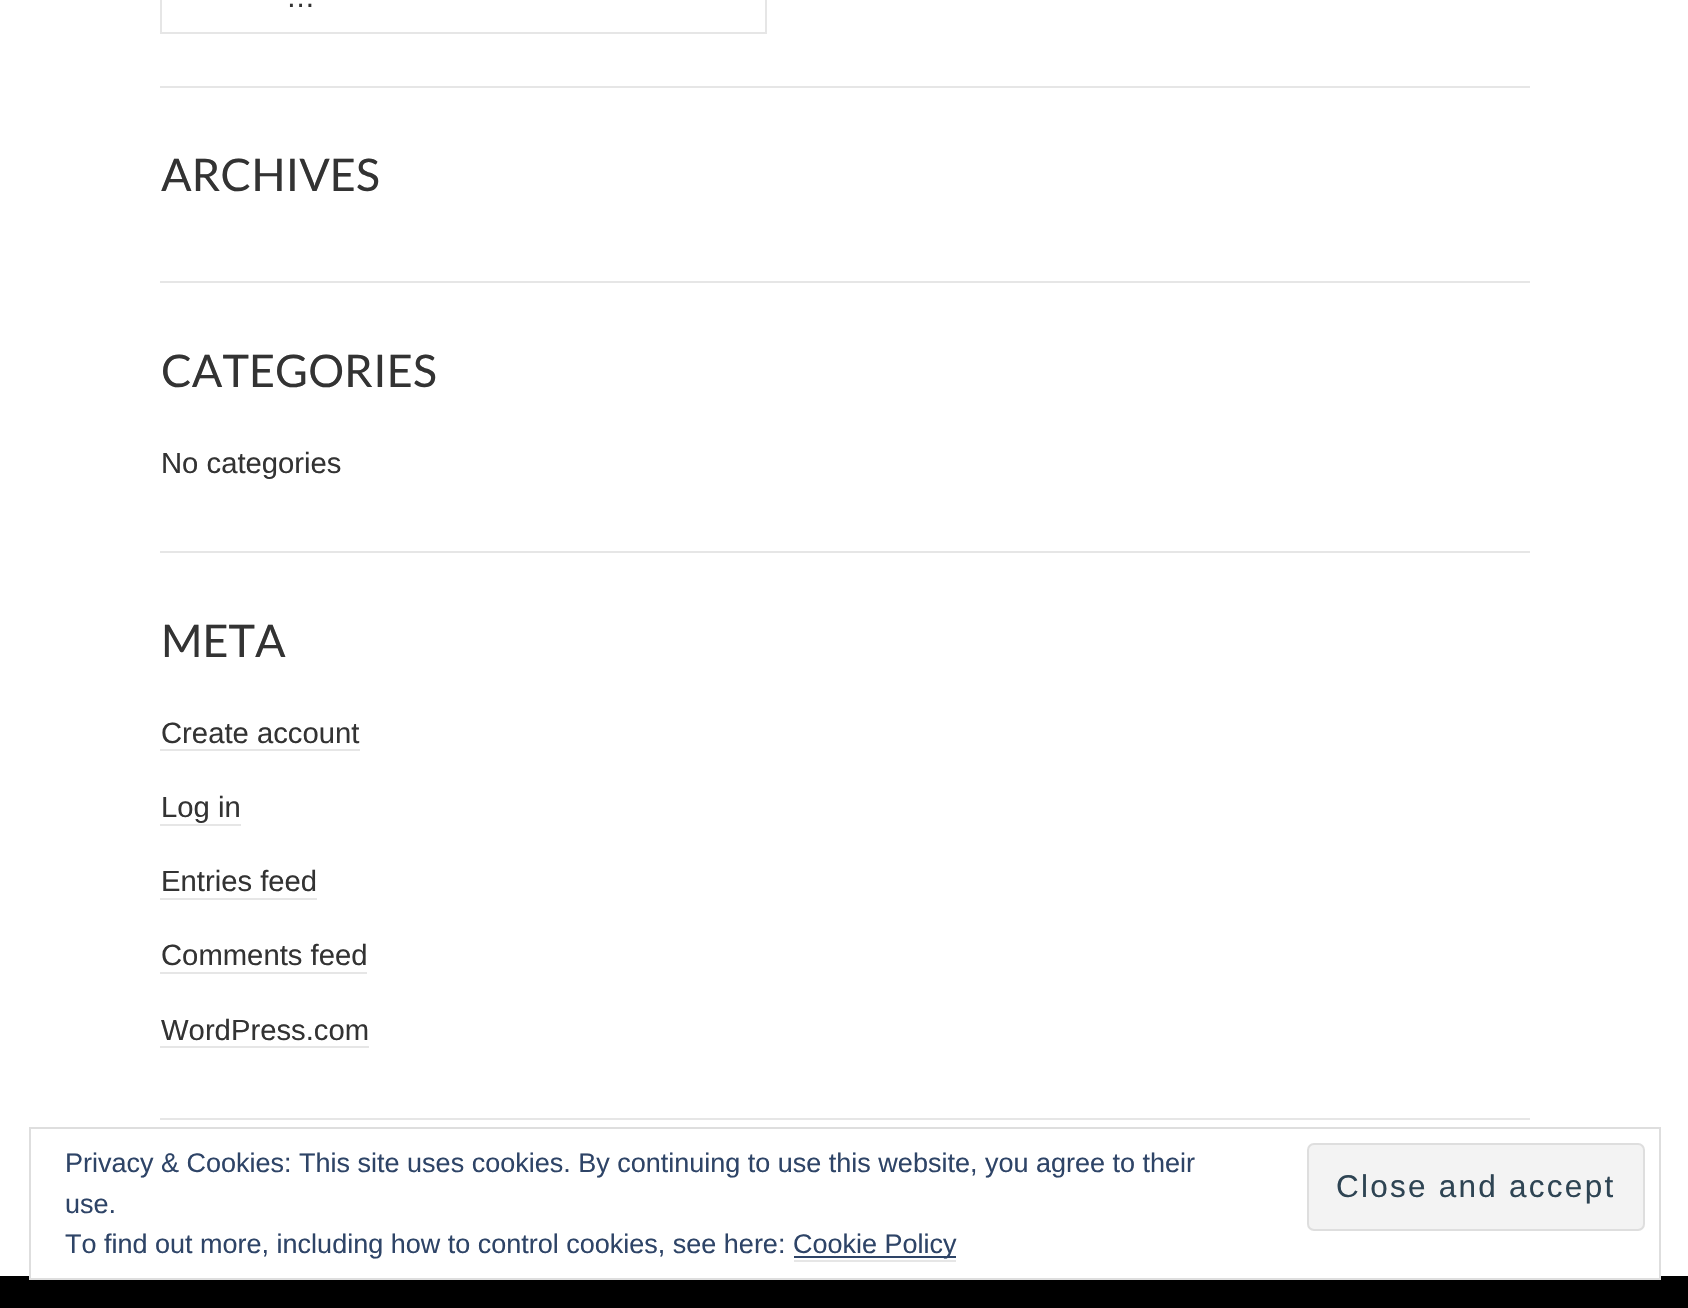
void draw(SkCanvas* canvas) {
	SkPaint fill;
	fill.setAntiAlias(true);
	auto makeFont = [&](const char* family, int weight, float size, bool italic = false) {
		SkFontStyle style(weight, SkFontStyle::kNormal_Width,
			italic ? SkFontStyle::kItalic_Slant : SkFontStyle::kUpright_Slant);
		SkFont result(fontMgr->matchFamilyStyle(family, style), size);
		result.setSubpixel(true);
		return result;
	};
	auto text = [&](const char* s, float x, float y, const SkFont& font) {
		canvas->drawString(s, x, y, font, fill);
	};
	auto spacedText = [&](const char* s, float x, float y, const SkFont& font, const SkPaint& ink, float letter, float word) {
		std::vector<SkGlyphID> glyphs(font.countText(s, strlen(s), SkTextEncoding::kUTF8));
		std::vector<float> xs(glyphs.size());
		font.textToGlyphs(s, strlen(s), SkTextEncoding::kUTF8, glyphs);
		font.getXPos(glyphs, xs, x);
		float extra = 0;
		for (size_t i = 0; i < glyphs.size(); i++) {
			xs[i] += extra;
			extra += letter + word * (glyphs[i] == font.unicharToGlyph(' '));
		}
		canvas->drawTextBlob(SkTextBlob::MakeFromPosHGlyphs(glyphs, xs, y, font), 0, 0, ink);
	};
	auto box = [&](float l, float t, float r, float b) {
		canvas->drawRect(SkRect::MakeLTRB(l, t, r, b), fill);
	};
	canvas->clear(0xFFFFFFFF);
	fill.setColor(0xFFE6E6E6);
	box(160, 86, 1530, 88);
	fill.setStyle(SkPaint::kStroke_Style);
	fill.setStrokeWidth(2);
	canvas->drawRect(SkRect::MakeLTRB(161, -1, 766, 33), fill);
	fill.setStyle(SkPaint::kFill_Style);
	box(160, 281, 1530, 283);
	box(160, 551, 1530, 553);
	box(160, 1118, 1530, 1120);
	box(160, 749, 360, 751);
	box(160, 824, 241, 826);
	box(160, 898, 317, 900);
	box(160, 972, 367, 974);
	box(160, 1046, 369, 1048);
	fill.setColor(0xFF000000);
	box(0, 1276, 1688, 1308);
	fill.setColor(0xFFFFFFFF);
	box(31, 1276, 1659, 1278);
	fill.setStyle(SkPaint::kStroke_Style);
	fill.setColor(0xFFDEDEDE);
	canvas->drawRect(SkRect::MakeLTRB(30, 1128, 1660, 1279), fill);
	fill.setStyle(SkPaint::kFill_Style);
	fill.setColor(0xFFF3F3F3);
	canvas->drawRoundRect(SkRect::MakeLTRB(1308, 1144, 1644, 1230), 6, 6, fill);
	fill.setStyle(SkPaint::kStroke_Style);
	fill.setColor(0xFFDEDEDE);
	canvas->drawRoundRect(SkRect::MakeLTRB(1308, 1144, 1644, 1230), 6, 6, fill);
	fill.setStyle(SkPaint::kFill_Style);
	fill.setColor(0xFFE6E6E6);
	box(794, 1260, 956, 1262);
	fill.setColor(0xFF2E4467);
	box(794, 1256, 956, 1258);
	auto font1 = makeFont("Liberation Sans", 400, 29.25f);
	fill.setColor(0xFF333333);
	text("…", 286, 7, font1);
	auto font2 = makeFont("Lato", 400, 45);
	text("ARCHIVES", 161, 191, font2);
	text("CATEGORIES", 161, 387, font2);
	text("No categories", 161, 473, font1);
	text("META", 161, 657, font2);
	text("Create account", 161, 743, font1);
	text("Log in", 161, 817, font1);
	text("Entries feed", 161, 891, font1);
	text("Comments feed", 161, 965, font1);
	text("WordPress.com", 161, 1040, font1);
	auto font3 = makeFont("Liberation Sans", 400, 27);
	fill.setColor(0xFF2E4467);
	text("Privacy & Cookies: This site uses cookies. By continuing to use this website, you agree to their", 65, 1172, font3);
	auto font4 = makeFont("Liberation Sans", 400, 31.5f);
	fill.setColor(0xFF2E4453);
	spacedText("Close and accept", 1336, 1197, font4, fill, 2.25f, 0);
	fill.setColor(0xFF2E4467);
	text("use.", 65, 1213, font3);
	text("To find out more, including how to control cookies, see here:", 65, 1253, font3);
	text("Cookie Policy", 793, 1253, font3);
}
